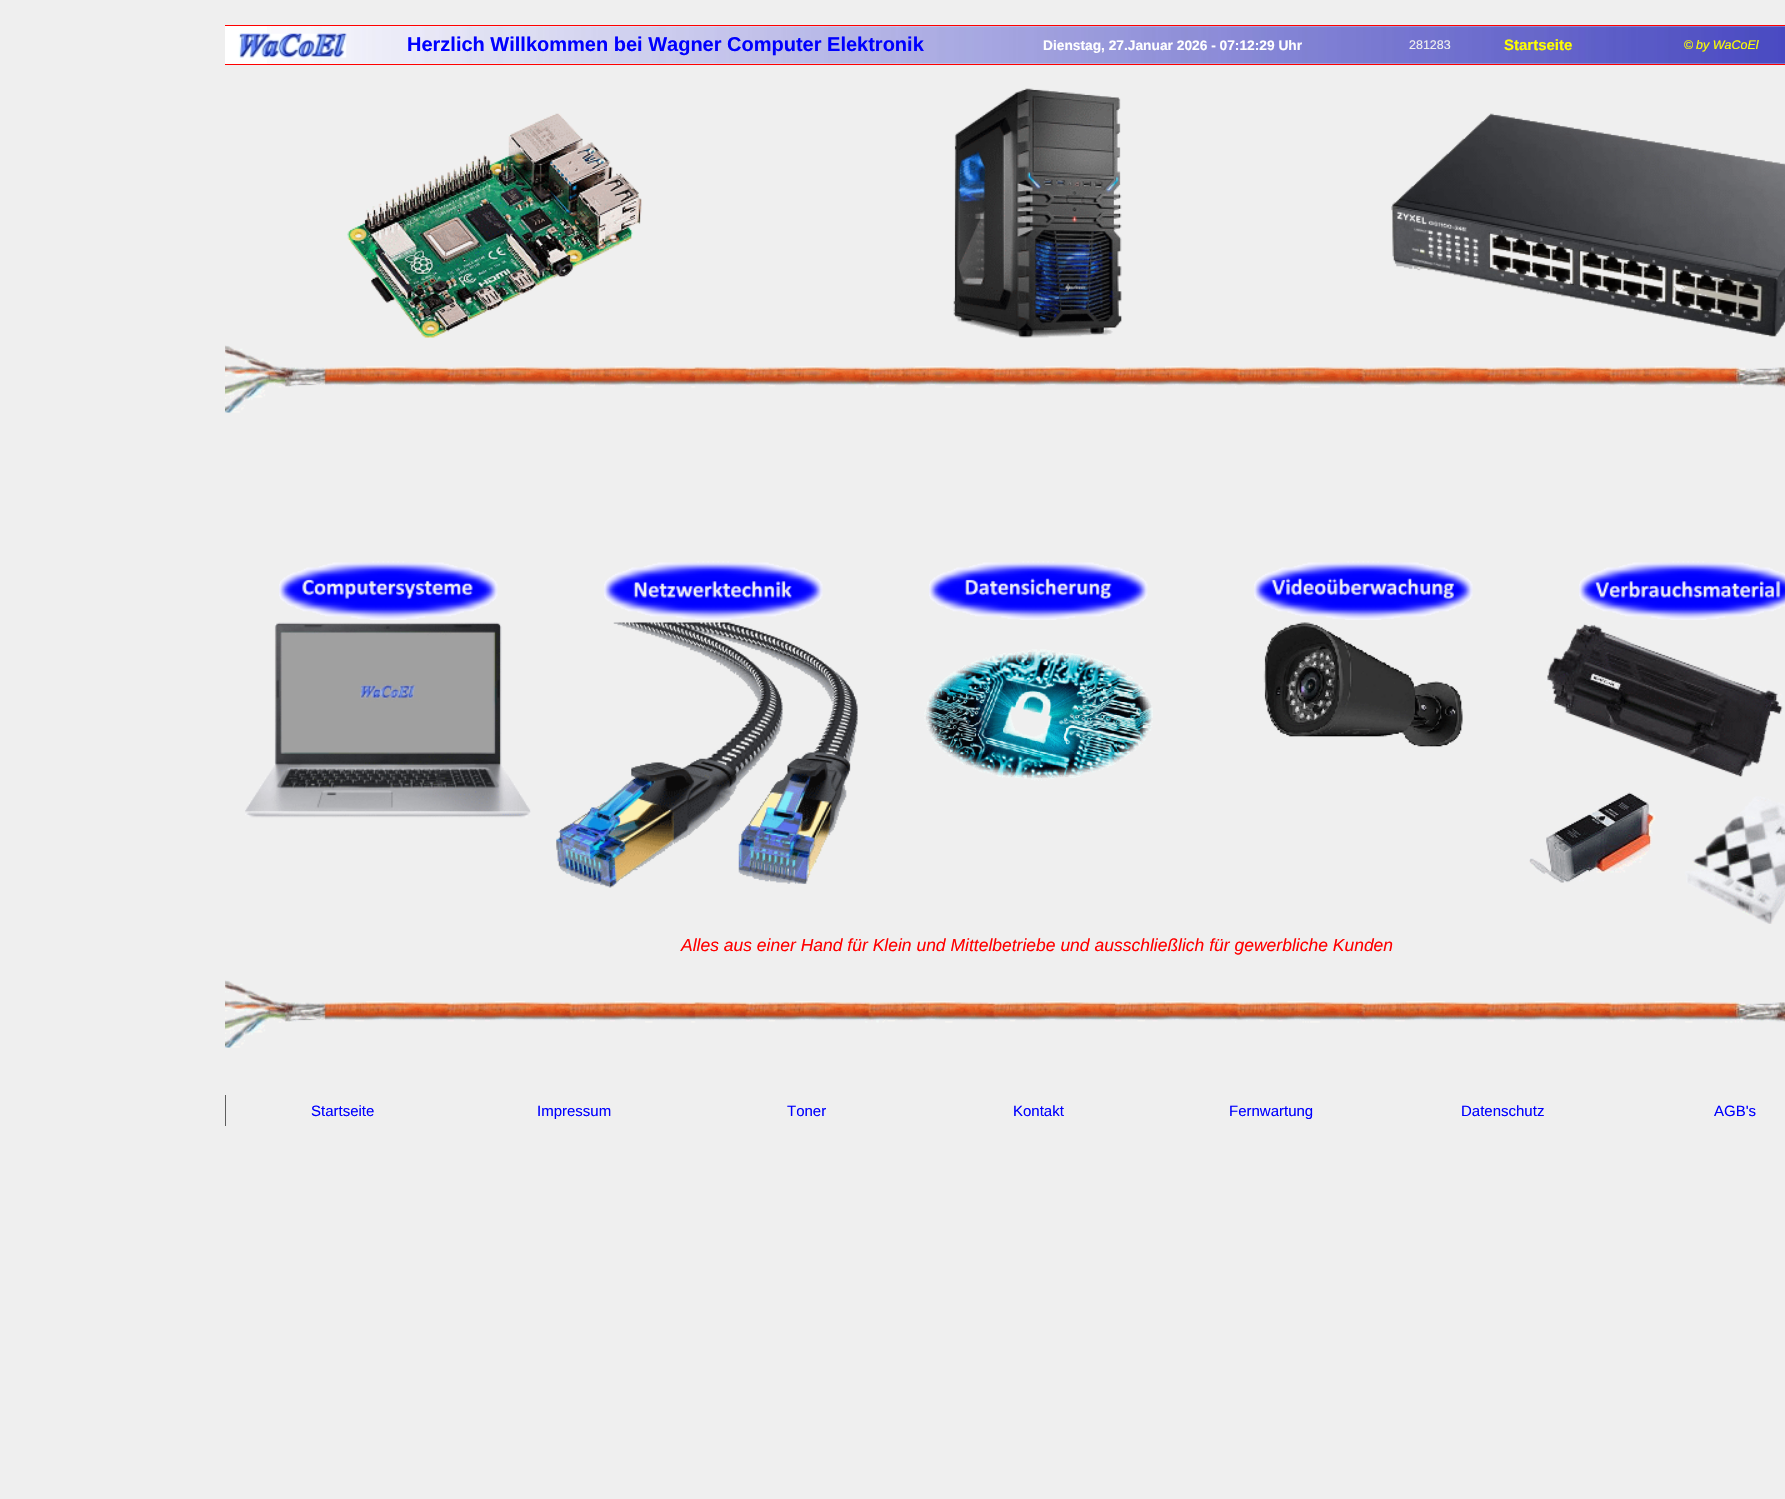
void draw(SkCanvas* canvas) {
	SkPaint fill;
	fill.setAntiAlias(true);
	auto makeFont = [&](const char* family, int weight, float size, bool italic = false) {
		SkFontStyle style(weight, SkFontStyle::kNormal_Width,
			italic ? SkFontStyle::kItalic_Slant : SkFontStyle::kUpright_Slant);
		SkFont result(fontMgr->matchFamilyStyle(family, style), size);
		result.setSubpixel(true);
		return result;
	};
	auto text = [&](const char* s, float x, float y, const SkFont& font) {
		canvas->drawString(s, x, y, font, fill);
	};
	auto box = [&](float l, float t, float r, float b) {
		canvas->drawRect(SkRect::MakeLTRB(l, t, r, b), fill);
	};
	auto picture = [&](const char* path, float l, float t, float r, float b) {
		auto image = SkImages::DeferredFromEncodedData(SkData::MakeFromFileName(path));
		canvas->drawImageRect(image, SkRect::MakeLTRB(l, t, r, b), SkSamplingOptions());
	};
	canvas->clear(0xFFEFEFEF);
	fill.setColor(0xFFFFFFFF);
	box(225, 26, 1785, 64);
	picture("image0.png", 267, 26, 1785, 64);
	fill.setColor(0xFFFF0000);
	box(225, 25, 1785, 26);
	box(225, 64, 1785, 65);
	picture("image1.png", 238, 33, 347, 58);
	picture("image2.png", 347, 113, 642, 338);
	picture("image3.png", 953, 88, 1122, 338);
	picture("image4.png", 1391, 113, 1785, 337);
	picture("image5.png", 225, 345, 1785, 413);
	picture("image6.png", 279, 561, 498, 620);
	picture("image7.png", 604, 561, 823, 620);
	picture("image8.png", 929, 561, 1148, 620);
	picture("image9.png", 1254, 561, 1473, 620);
	picture("image10.png", 1579, 561, 1785, 620);
	picture("image11.png", 245, 622, 531, 818);
	picture("image12.png", 556, 622, 858, 888);
	picture("image13.png", 924, 649, 1153, 781);
	picture("image14.png", 1263, 622, 1463, 747);
	picture("image15.png", 1529, 623, 1785, 924);
	picture("image5.png", 225, 980, 1785, 1048);
	fill.setColor(0xFF5F5F5F);
	box(225, 1095, 226, 1126);
	auto font1 = makeFont("Liberation Sans", 700, 20);
	fill.setColor(0xFF0000FF);
	text("Herzlich Willkommen bei Wagner Computer Elektronik", 407, 51, font1);
	auto font2 = makeFont("Liberation Sans", 700, 13.75f);
	fill.setColor(0xFFFFFFFF);
	text("Dienstag, 27.Januar 2026 - 07:12:29 Uhr", 1043, 50, font2);
	auto font3 = makeFont("Liberation Sans", 400, 12.5f);
	fill.setColor(0xFFEFEFEF);
	text("281283", 1409, 49, font3);
	auto font4 = makeFont("Liberation Sans", 700, 15);
	fill.setColor(0xFFFFFF00);
	text("Startseite", 1504, 50, font4);
	text("©", 1684, 49, font3);
	auto font5 = makeFont("Liberation Sans", 400, 12.5f, true);
	text("by WaCoEl", 1696, 49, font5);
	auto font6 = makeFont("Liberation Sans", 400, 17.5f, true);
	fill.setColor(0xFFFF0000);
	text("Alles aus einer Hand für Klein und Mittelbetriebe und ausschließlich für gewerbliche Kunden", 681, 951, font6);
	auto font7 = makeFont("Liberation Sans", 400, 15);
	fill.setColor(0xFF0000FF);
	text("Startseite", 311, 1116, font7);
	text("Impressum", 537, 1116, font7);
	text("Toner", 787, 1116, font7);
	text("Kontakt", 1013, 1116, font7);
	text("Fernwartung", 1229, 1116, font7);
	text("Datenschutz", 1461, 1116, font7);
	text("AGB's", 1714, 1116, font7);
}
